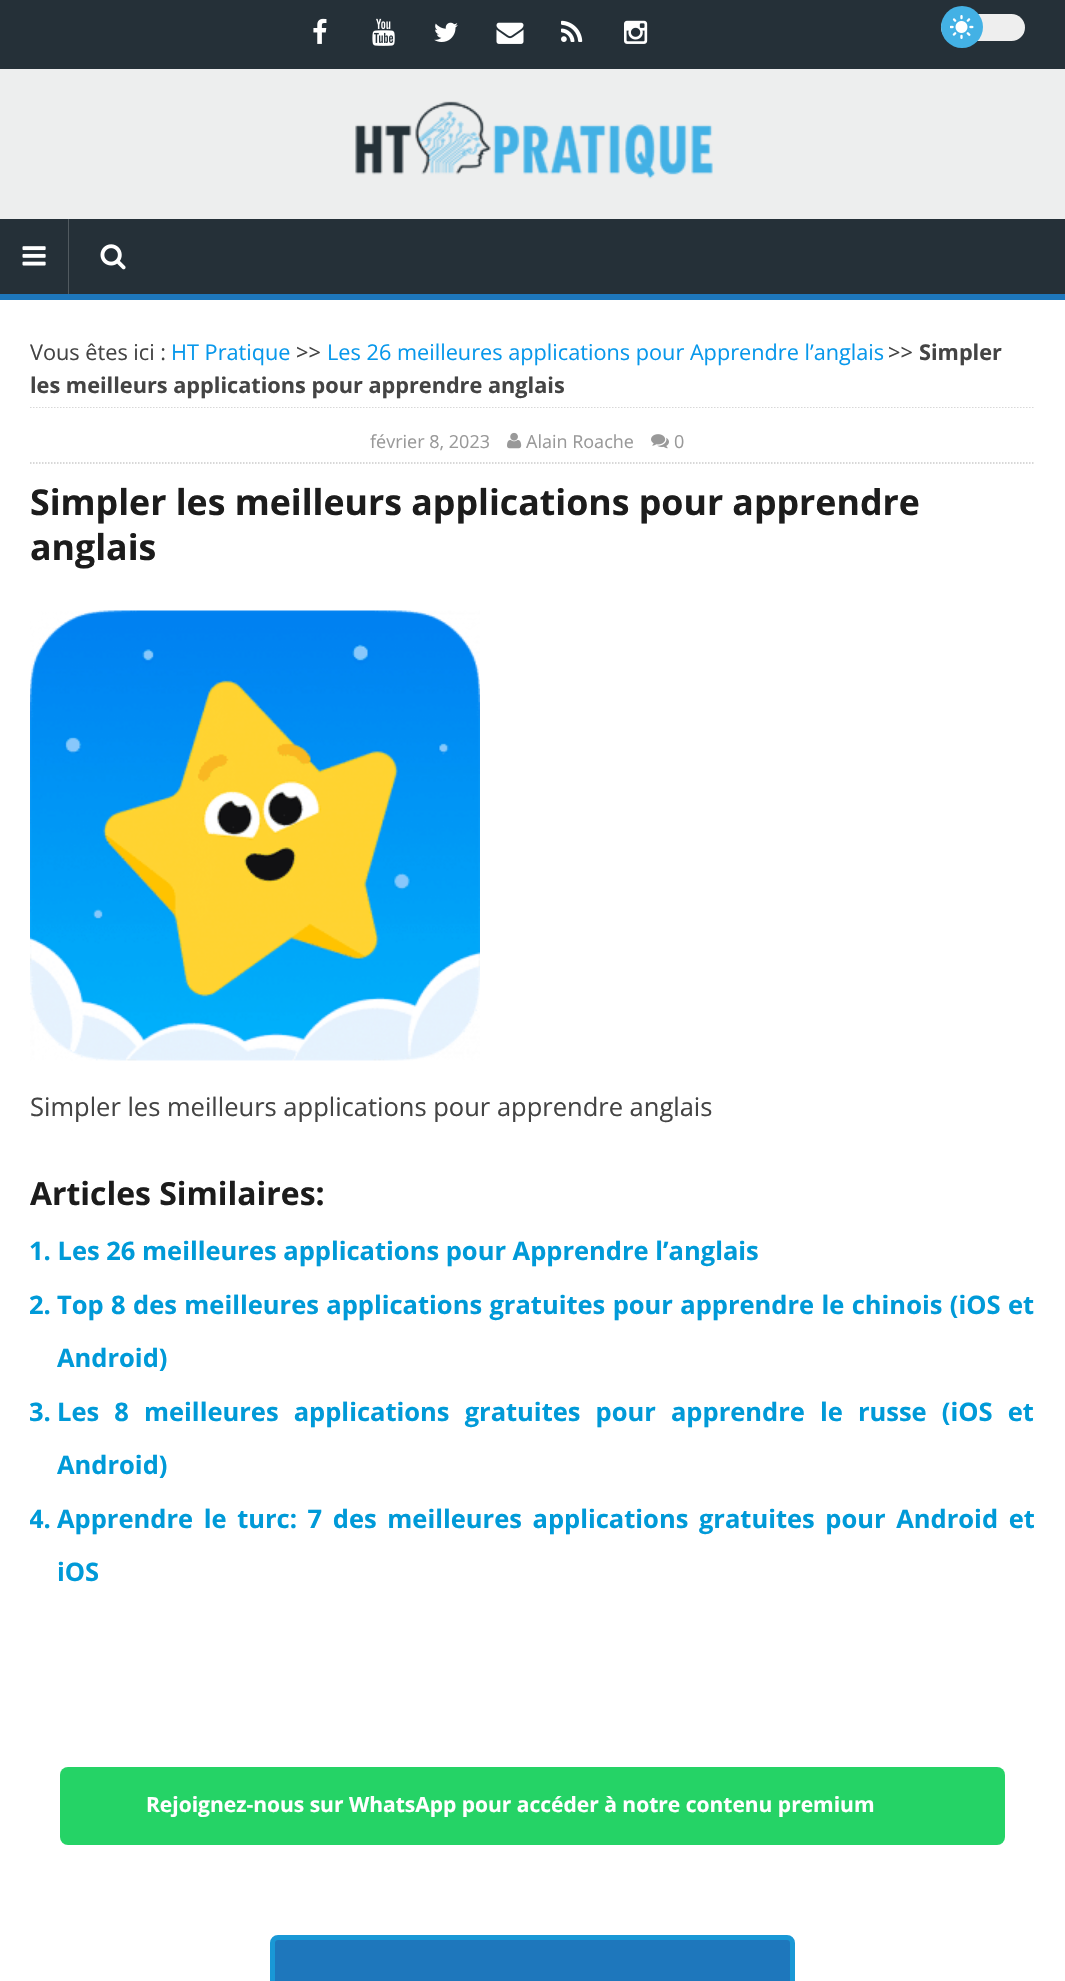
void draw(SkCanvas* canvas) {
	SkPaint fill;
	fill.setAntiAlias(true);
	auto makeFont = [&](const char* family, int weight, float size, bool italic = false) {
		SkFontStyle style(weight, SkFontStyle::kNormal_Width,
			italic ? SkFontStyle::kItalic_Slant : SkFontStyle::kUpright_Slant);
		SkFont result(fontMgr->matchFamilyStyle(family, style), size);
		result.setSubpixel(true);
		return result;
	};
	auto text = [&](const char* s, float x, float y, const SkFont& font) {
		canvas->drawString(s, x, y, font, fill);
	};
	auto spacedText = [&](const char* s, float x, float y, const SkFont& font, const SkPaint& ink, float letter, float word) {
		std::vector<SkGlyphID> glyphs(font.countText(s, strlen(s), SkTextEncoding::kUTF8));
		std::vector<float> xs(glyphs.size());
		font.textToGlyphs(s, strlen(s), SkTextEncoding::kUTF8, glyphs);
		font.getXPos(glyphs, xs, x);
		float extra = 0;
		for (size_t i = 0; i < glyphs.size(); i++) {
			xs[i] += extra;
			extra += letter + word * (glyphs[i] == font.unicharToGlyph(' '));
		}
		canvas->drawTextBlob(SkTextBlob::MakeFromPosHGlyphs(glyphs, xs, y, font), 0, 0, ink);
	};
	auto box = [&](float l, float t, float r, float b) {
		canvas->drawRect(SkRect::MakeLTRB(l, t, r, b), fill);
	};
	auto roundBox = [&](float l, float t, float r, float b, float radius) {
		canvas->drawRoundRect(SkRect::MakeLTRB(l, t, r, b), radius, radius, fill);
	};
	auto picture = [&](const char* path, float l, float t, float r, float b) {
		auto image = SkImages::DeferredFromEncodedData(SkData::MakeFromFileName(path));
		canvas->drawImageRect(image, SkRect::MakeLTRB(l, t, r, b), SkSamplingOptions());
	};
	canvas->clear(0xFFFFFFFF);
	fill.setColor(0xFF253038);
	box(0, 0, 1065, 69);
	picture("image0.png", 313, 18, 327, 44);
	picture("image1.png", 372, 18, 395, 46);
	picture("image2.png", 434, 22, 458, 42);
	picture("image3.png", 496, 22, 524, 44);
	picture("image4.png", 561, 20, 583, 42);
	picture("image5.png", 624, 20, 648, 44);
	fill.setColor(0xFFEEEEEE);
	roundBox(941, 14, 1025, 41, 13.5f);
	fill.setColor(0xFF43B1E5);
	canvas->drawCircle(962, 27, 21, fill);
	picture("image6.png", 950, 15, 974, 39);
	fill.setColor(0xFFEDEEEE);
	box(0, 69, 1065, 219);
	picture("image7.png", 355, 101, 713, 179);
	fill.setColor(0xFF253038);
	box(0, 219, 1065, 294);
	fill.setColor(0xFF1E77BC);
	box(0, 294, 1065, 300);
	picture("image8.png", 22, 246, 46, 266);
	fill.setColor(0xFF515A60);
	box(68, 219, 69, 294);
	picture("image9.png", 100, 244, 126, 270);
	canvas->save();
	canvas->clipRect(SkRect::MakeLTRB(30, 407, 1035, 1875));
	fill.setStyle(SkPaint::kStroke_Style);
	fill.setStrokeWidth(1.5f);
	fill.setColor(0xFFCCCCCC);
	fill.setPathEffect(SkDashPathEffect::Make({{1.5f, 1.5f}}, 0));
	canvas->drawPath(SkPathBuilder().moveTo(30, 407).lineTo(1035, 407).detach(), fill);
	fill.setPathEffect(nullptr);
	canvas->restore();
	fill.setPathEffect(SkDashPathEffect::Make({{1.5f, 1.5f}}, 0));
	canvas->drawPath(SkPathBuilder().moveTo(30, 463).lineTo(1035, 463).detach(), fill);
	fill.setPathEffect(nullptr);
	picture("image10.png", 507, 432, 522, 449);
	picture("image11.png", 651, 434, 669, 449);
	picture("image12.png", 30, 610, 480, 1061);
	fill.setStyle(SkPaint::kFill_Style);
	fill.setColor(0xFF25D366);
	roundBox(60, 1767, 1005, 1845, 8);
	fill.setColor(0xFF1E77BC);
	canvas->drawRoundRect(SkRect::MakeLTRB(272.5f, 1937.5f, 792.5f, 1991.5f), 5.5f, 5.5f, fill);
	fill.setStyle(SkPaint::kStroke_Style);
	fill.setStrokeWidth(5);
	fill.setColor(0xFF1998D6);
	canvas->drawRoundRect(SkRect::MakeLTRB(272.5f, 1937.5f, 792.5f, 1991.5f), 5.5f, 5.5f, fill);
	auto font1 = makeFont("Open Sans", 400, 21.7f);
	fill.setStyle(SkPaint::kFill_Style);
	fill.setColor(0xFF444444);
	text("Vous êtes ici :", 30, 360, font1);
	fill.setColor(0xFF0898EB);
	text("HT Pratique", 171, 360, font1);
	fill.setColor(0xFF444444);
	text(">>", 296, 360, font1);
	fill.setColor(0xFF0898EB);
	text("Les 26 meilleures applications pour Apprendre l’anglais", 327, 360, font1);
	fill.setColor(0xFF444444);
	text(">>", 888, 360, font1);
	auto font2 = makeFont("Open Sans", 700, 21.7f);
	text("Simpler", 919, 360, font2);
	text("les meilleurs applications pour apprendre anglais", 30, 393, font2);
	auto font3 = makeFont("Open Sans", 400, 18);
	fill.setColor(0xFF999999);
	text("février 8, 2023", 370, 448, font3);
	text("Alain Roache", 526, 448, font3);
	text("0", 674, 448, font3);
	auto font4 = makeFont("Open Sans", 700, 35.7f);
	fill.setColor(0xFF1C1C1C);
	text("Simpler les meilleurs applications pour apprendre", 30, 515, font4);
	text("anglais", 30, 560, font4);
	auto font5 = makeFont("Open Sans", 400, 25.5f);
	fill.setColor(0xFF444444);
	text("Simpler les meilleurs applications pour apprendre anglais", 30, 1116, font5);
	auto font6 = makeFont("Open Sans", 700, 31.9f);
	fill.setColor(0xFF1C1C1C);
	text("Articles Similaires:", 30, 1205, font6);
	auto font7 = makeFont("Open Sans", 700, 25.5f);
	fill.setColor(0xFF009AD8);
	text("1. Les 26 meilleures applications pour Apprendre l’anglais", 29, 1260, font7);
	canvas->save();
	canvas->clipRect(SkRect::MakeLTRB(30, 407, 1035, 1875));
	text("2.", 29, 1314, font7);
	canvas->restore();
	spacedText("Top 8 des meilleures applications gratuites pour apprendre le chinois (iOS et", 57, 1314, font7, fill, 0, 0.75f);
	text("Android)", 57, 1367, font7);
	canvas->save();
	canvas->clipRect(SkRect::MakeLTRB(30, 407, 1035, 1875));
	text("3.", 29, 1421, font7);
	canvas->restore();
	spacedText("Les 8 meilleures applications gratuites pour apprendre le russe (iOS et", 57, 1421, font7, fill, 0, 8.5f);
	text("Android)", 57, 1474, font7);
	canvas->save();
	canvas->clipRect(SkRect::MakeLTRB(30, 407, 1035, 1875));
	text("4.", 29, 1528, font7);
	canvas->restore();
	spacedText("Apprendre le turc: 7 des meilleures applications gratuites pour Android et", 57, 1528, font7, fill, 0, 4);
	text("iOS", 57, 1581, font7);
	auto font8 = makeFont("Open Sans", 700, 21);
	fill.setColor(0xFFFFFFFF);
	text("Rejoignez-nous sur WhatsApp pour accéder à notre contenu premium", 146, 1812, font8);
}
